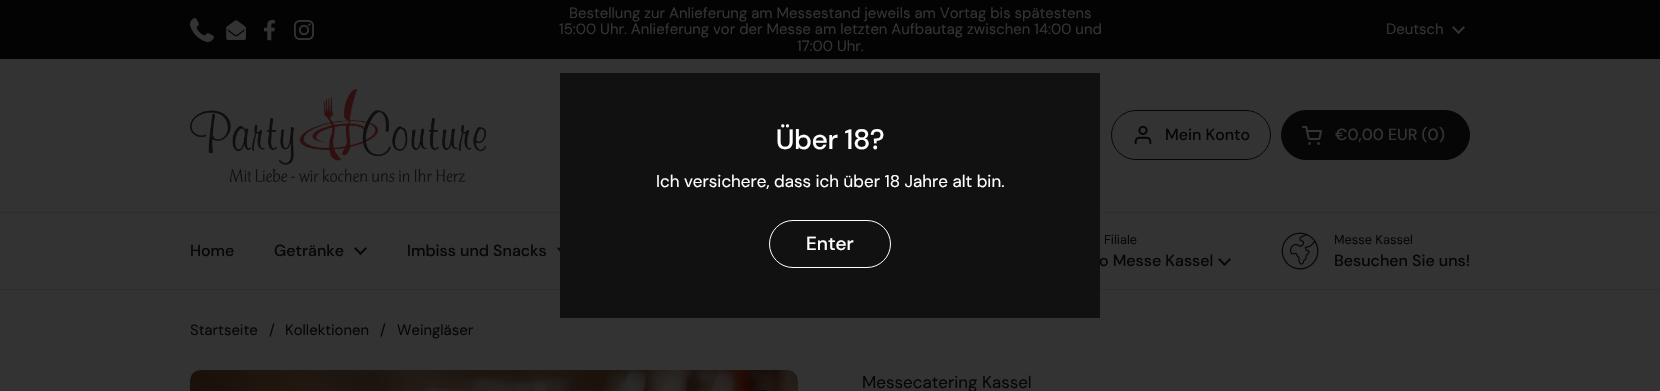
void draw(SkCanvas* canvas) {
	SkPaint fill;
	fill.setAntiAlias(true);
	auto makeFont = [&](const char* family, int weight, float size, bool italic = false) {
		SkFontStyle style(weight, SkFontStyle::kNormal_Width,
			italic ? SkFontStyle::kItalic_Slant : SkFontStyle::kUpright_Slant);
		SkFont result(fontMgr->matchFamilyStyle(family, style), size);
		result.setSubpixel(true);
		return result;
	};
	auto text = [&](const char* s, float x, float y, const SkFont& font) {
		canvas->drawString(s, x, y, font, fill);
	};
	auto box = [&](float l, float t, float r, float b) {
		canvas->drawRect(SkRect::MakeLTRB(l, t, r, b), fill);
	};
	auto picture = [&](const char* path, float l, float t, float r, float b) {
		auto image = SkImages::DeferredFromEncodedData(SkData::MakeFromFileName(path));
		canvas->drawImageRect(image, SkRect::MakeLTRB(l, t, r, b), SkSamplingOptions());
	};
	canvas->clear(0xFF333333);
	fill.setColor(0xFF030303);
	box(0, 0, 1660, 59);
	picture("image0.png", 190, 18, 214, 42);
	picture("image1.png", 226, 20, 246, 40);
	picture("image2.png", 264, 20, 275, 41);
	picture("image3.png", 294, 20, 314, 40);
	picture("image4.png", 1452, 26, 1465, 34);
	fill.setColor(0xFF2E2E2E);
	box(0, 212, 1660, 213);
	box(0, 289, 1660, 290);
	fill.setColor(0xFF111111);
	box(560, 73, 1100, 318);
	fill.setStyle(SkPaint::kStroke_Style);
	fill.setStrokeWidth(1);
	fill.setColor(0xFFFFFFFF);
	canvas->drawRoundRect(SkRect::MakeLTRB(769.5f, 220.5f, 890.5f, 267.5f), 23.5f, 23.5f, fill);
	picture("image5.png", 190, 89, 486, 182);
	fill.setColor(0xFF060606);
	canvas->drawRoundRect(SkRect::MakeLTRB(1111.5f, 110.5f, 1270.5f, 159.5f), 24.5f, 24.5f, fill);
	picture("image6.png", 1134, 125, 1152, 145);
	fill.setStyle(SkPaint::kFill_Style);
	canvas->drawRoundRect(SkRect::MakeLTRB(1281.5f, 110.5f, 1469.5f, 159.5f), 24.5f, 24.5f, fill);
	fill.setStyle(SkPaint::kStroke_Style);
	canvas->drawRoundRect(SkRect::MakeLTRB(1281.5f, 110.5f, 1469.5f, 159.5f), 24.5f, 24.5f, fill);
	picture("image7.png", 1302, 126, 1322, 145);
	picture("image8.png", 354, 247, 367, 255);
	picture("image9.png", 557, 247, 560, 252);
	picture("image8.png", 1218, 258, 1231, 266);
	picture("image10.png", 1281, 232, 1319, 270);
	picture("image11.png", 190, 370, 798, 391);
	picture("image12.png", 759, 390, 767, 391);
	auto font1 = makeFont("DM Sans", 400, 14.9f);
	fill.setStyle(SkPaint::kFill_Style);
	fill.setColor(0xFF333333);
	text("Bestellung zur Anlieferung am Messestand jeweils am Vortag bis spätestens", 569, 18, font1);
	text("15:00 Uhr. Anlieferung vor der Messe am letzten Aufbautag zwischen 14:00 und", 559, 34, font1);
	text("17:00 Uhr.", 797, 51, font1);
	text("Deutsch", 1386, 34, font1);
	auto font2 = makeFont("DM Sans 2", 500, 28);
	fill.setColor(0xFFFFFFFF);
	text("Über 18?", 776, 149, font2);
	auto font3 = makeFont("DM Sans 2", 400, 17);
	text("Ich versichere, dass ich über 18 Jahre alt bin.", 656, 187, font3);
	auto font4 = makeFont("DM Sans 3", 500, 19);
	text("Enter", 806, 250, font4);
	auto font5 = makeFont("DM Sans", 500, 16);
	fill.setColor(0xFF060606);
	text("Mein Konto", 1165, 140, font5);
	fill.setColor(0xFF333333);
	text("€0,00 EUR (0)", 1335, 140, font5);
	fill.setColor(0xFF060606);
	text("Home", 190, 256, font5);
	text("Getränke", 274, 256, font5);
	text("Imbiss und Snacks", 407, 256, font5);
	auto font6 = makeFont("DM Sans 3", 400, 12.75f);
	text("Filiale", 1104, 244, font6);
	text("o Messe Kassel", 1099, 266, font5);
	text("Messe Kassel", 1334, 244, font6);
	text("Besuchen Sie uns!", 1334, 266, font5);
	text("Startseite", 190, 335, font1);
	text("/", 269, 335, font1);
	text("Kollektionen", 285, 335, font1);
	text("/", 380, 335, font1);
	text("Weingläser", 397, 335, font1);
	text("Messecatering Kassel", 862, 388, font3);
}
